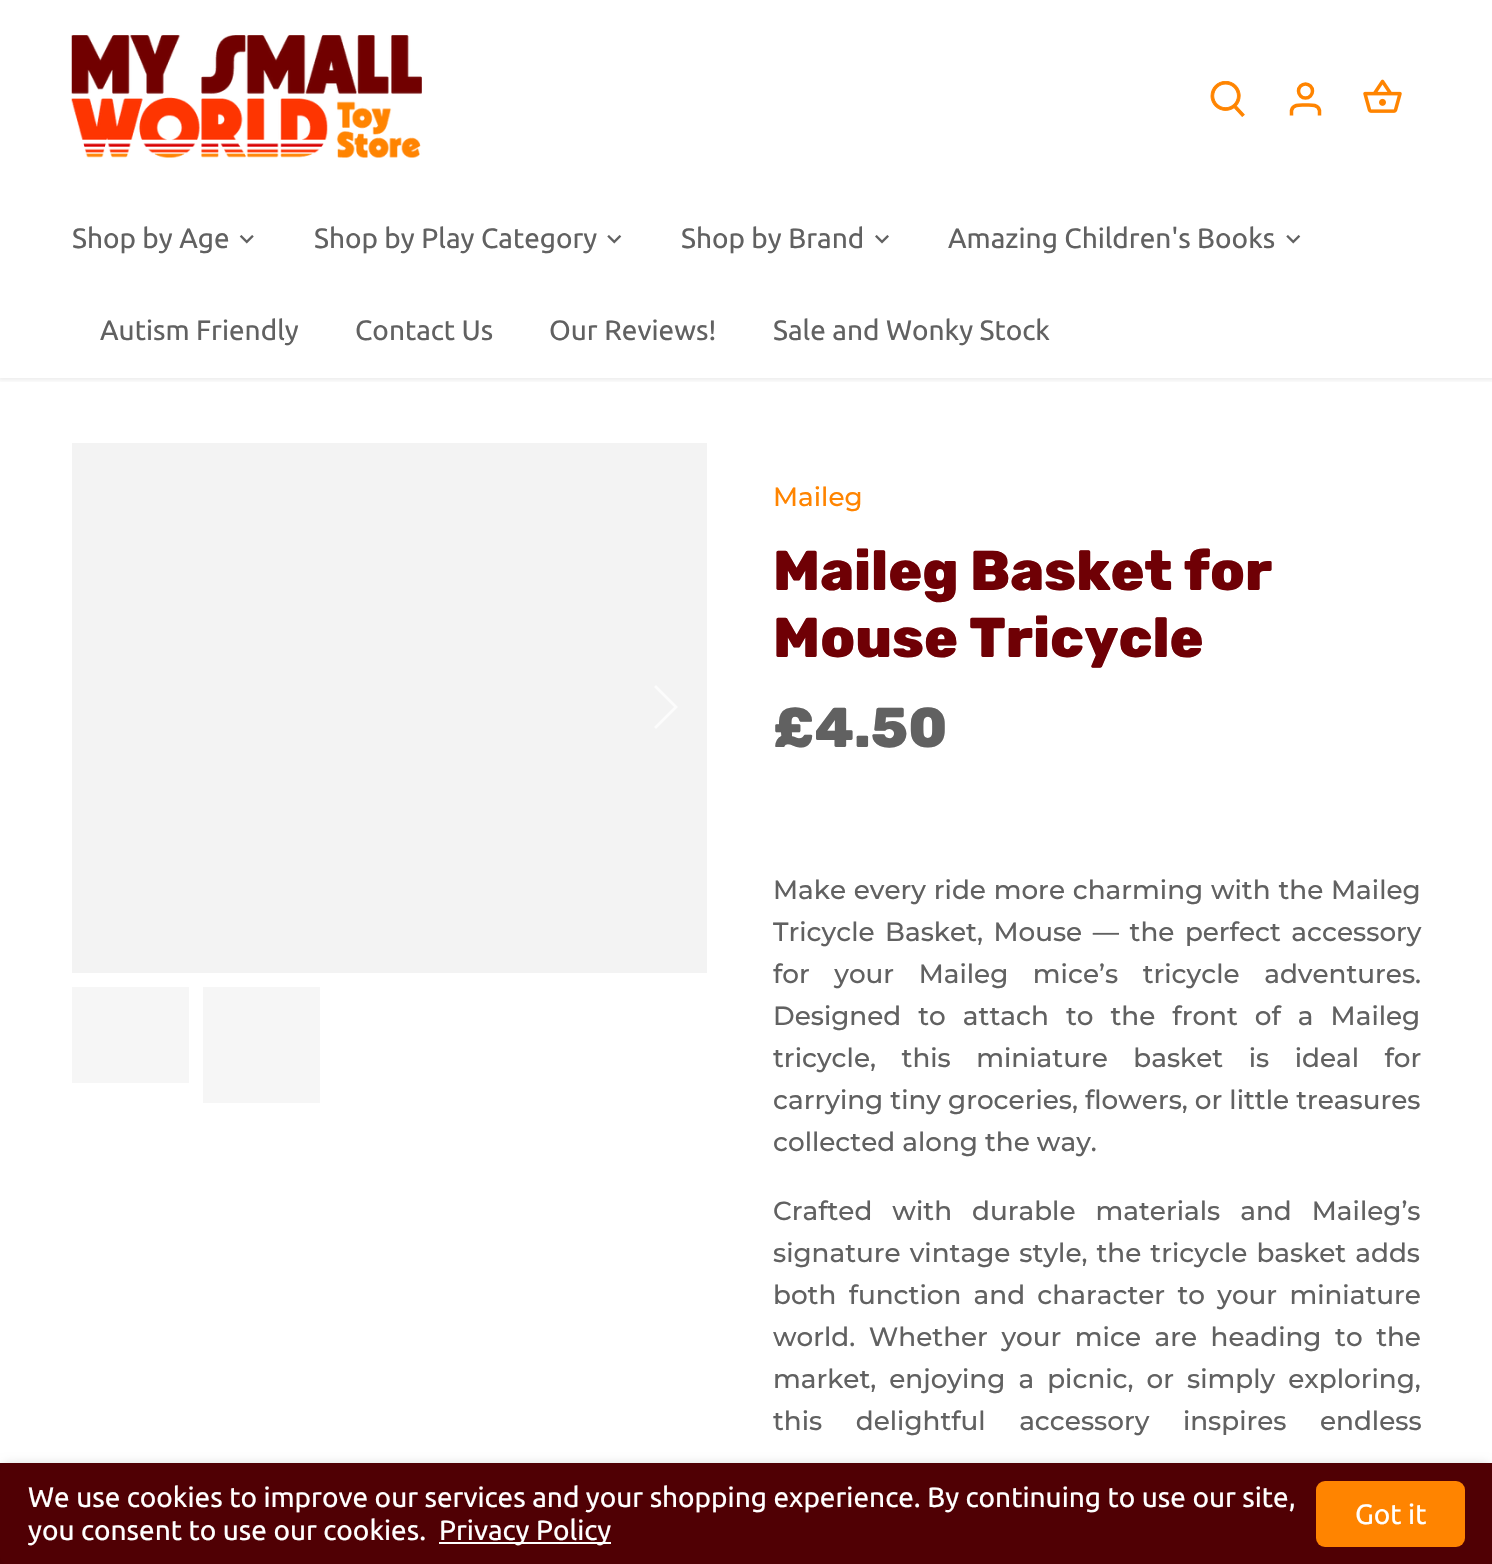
void draw(SkCanvas* canvas) {
	SkPaint fill;
	fill.setAntiAlias(true);
	auto makeFont = [&](const char* family, int weight, float size, bool italic = false) {
		SkFontStyle style(weight, SkFontStyle::kNormal_Width,
			italic ? SkFontStyle::kItalic_Slant : SkFontStyle::kUpright_Slant);
		SkFont result(fontMgr->matchFamilyStyle(family, style), size);
		result.setSubpixel(true);
		return result;
	};
	auto text = [&](const char* s, float x, float y, const SkFont& font) {
		canvas->drawString(s, x, y, font, fill);
	};
	auto spacedText = [&](const char* s, float x, float y, const SkFont& font, const SkPaint& ink, float letter, float word) {
		std::vector<SkGlyphID> glyphs(font.countText(s, strlen(s), SkTextEncoding::kUTF8));
		std::vector<float> xs(glyphs.size());
		font.textToGlyphs(s, strlen(s), SkTextEncoding::kUTF8, glyphs);
		font.getXPos(glyphs, xs, x);
		float extra = 0;
		for (size_t i = 0; i < glyphs.size(); i++) {
			xs[i] += extra;
			extra += letter + word * (glyphs[i] == font.unicharToGlyph(' '));
		}
		canvas->drawTextBlob(SkTextBlob::MakeFromPosHGlyphs(glyphs, xs, y, font), 0, 0, ink);
	};
	auto box = [&](float l, float t, float r, float b) {
		canvas->drawRect(SkRect::MakeLTRB(l, t, r, b), fill);
	};
	auto roundBox = [&](float l, float t, float r, float b, float radius) {
		canvas->drawRoundRect(SkRect::MakeLTRB(l, t, r, b), radius, radius, fill);
	};
	auto picture = [&](const char* path, float l, float t, float r, float b) {
		auto image = SkImages::DeferredFromEncodedData(SkData::MakeFromFileName(path));
		canvas->drawImageRect(image, SkRect::MakeLTRB(l, t, r, b), SkSamplingOptions());
	};
	canvas->clear(0xFFFFFFFF);
	canvas->save();
	canvas->clipRect(SkRect::MakeLTRB(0, 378, 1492, 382));
	fill.setColor(0x14000000);
	fill.setMaskFilter(SkMaskFilter::MakeBlur(kNormal_SkBlurStyle, 2.5f));
	canvas->drawRect(SkRect::MakeLTRB(-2, -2, 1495, 380), fill);
	fill.setMaskFilter(nullptr);
	canvas->restore();
	picture("image0.png", 71, 35, 422, 158);
	picture("image1.png", 1210, 81, 1245, 117);
	fill.setStyle(SkPaint::kStroke_Style);
	fill.setStrokeWidth(3.5f);
	fill.setColor(0xFFFF8400);
	canvas->drawCircle(1305.5f, 91, 7, fill);
	canvas->drawPath(SkPathBuilder().moveTo(1319.5f, 115.5f).lineTo(1319.5f, 110.5f).cubicTo(1318, 104, 1310.5f, 105, 1305.5f, 105).cubicTo(1300.5f, 105, 1293, 104, 1291.5f, 110.5f).lineTo(1291.5f, 115.5f).detach(), fill);
	picture("image2.png", 1363, 79, 1402, 113);
	picture("image3.png", 239, 235, 254, 244);
	picture("image4.png", 607, 235, 622, 244);
	picture("image5.png", 875, 235, 889, 244);
	picture("image4.png", 1286, 235, 1301, 244);
	fill.setStyle(SkPaint::kFill_Style);
	fill.setColor(0xFFF3F3F3);
	box(72, 443, 707, 973);
	fill.setColor(0xFFFCFCFC);
	canvas->drawPath(SkPathBuilder().moveTo(656, 685).lineTo(654, 687).lineTo(674, 707).lineTo(654, 727).lineTo(656, 729).lineTo(678, 707).close().detach(), fill);
	fill.setColor(0xFFF6F6F6);
	box(72, 987, 189, 1083);
	box(203, 987, 320, 1103);
	fill.setColor(0xFF500004);
	box(0, 1463, 1492, 1564);
	canvas->save();
	canvas->clipPath(SkPathBuilder(SkPathFillType::kEvenOdd).moveTo(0, 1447).lineTo(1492, 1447).lineTo(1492, 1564).lineTo(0, 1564).close().moveTo(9, 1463).lineTo(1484, 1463).cubicTo(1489, 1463, 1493, 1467, 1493, 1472).lineTo(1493, 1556).cubicTo(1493, 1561, 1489, 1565, 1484, 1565).lineTo(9, 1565).cubicTo(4, 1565, 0, 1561, 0, 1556).lineTo(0, 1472).cubicTo(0, 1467, 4, 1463, 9, 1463).close().detach(), true);
	fill.setColor(0x1F000000);
	fill.setMaskFilter(SkMaskFilter::MakeBlur(kNormal_SkBlurStyle, 5));
	canvas->drawRoundRect(SkRect::MakeLTRB(0, 1463, 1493, 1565), 9, 9, fill);
	fill.setMaskFilter(nullptr);
	canvas->restore();
	fill.setColor(0xFFFFFFFF);
	box(439, 1542, 611, 1544);
	fill.setColor(0xFFFF8400);
	roundBox(1316, 1481, 1465, 1547, 9);
	auto font1 = makeFont("Ubuntu", 400, 28);
	fill.setColor(0xFF616161);
	text("Shop by Age", 72, 248, font1);
	text("Shop by Play Category", 314, 248, font1);
	text("Shop by Brand", 681, 248, font1);
	text("Amazing Children's Books", 948, 248, font1);
	text("Autism Friendly", 100, 340, font1);
	text("Contact Us", 355, 340, font1);
	text("Our Reviews!", 549, 340, font1);
	text("Sale and Wonky Stock", 773, 340, font1);
	auto font2 = makeFont("Montserrat", 500, 26.25f);
	fill.setColor(0xFFFF8400);
	text("Maileg", 773, 506, font2);
	auto font3 = makeFont("Rubik", 800, 56);
	fill.setColor(0xFF6F0005);
	text("Maileg Basket for", 773, 590, font3);
	text("Mouse Tricycle", 773, 657, font3);
	fill.setColor(0xFF616161);
	text("£4.50", 773, 747, font3);
	spacedText("Make every ride more charming with the Maileg", 773, 899, font2, fill, 0, 0.75f);
	spacedText("Tricycle Basket, Mouse — the perfect accessory", 773, 941, font2, fill, 0, 3.5f);
	spacedText("for your Maileg mice’s tricycle adventures.", 773, 983, font2, fill, 0, 17.5f);
	spacedText("Designed to attach to the front of a Maileg", 773, 1025, font2, fill, 0, 10);
	spacedText("tricycle, this miniature basket is ideal for", 773, 1067, font2, fill, 0, 18.5f);
	text("carrying tiny groceries, flowers, or little treasures", 773, 1109, font2);
	text("collected along the way.", 773, 1151, font2);
	spacedText("Crafted with durable materials and Maileg’s", 773, 1220, font2, fill, 0, 13);
	spacedText("signature vintage style, the tricycle basket adds", 773, 1262, font2, fill, 0, 2);
	spacedText("both function and character to your miniature", 773, 1304, font2, fill, 0, 5.25f);
	spacedText("world. Whether your mice are heading to the", 773, 1346, font2, fill, 0, 6.5f);
	spacedText("market, enjoying a picnic, or simply exploring,", 773, 1388, font2, fill, 0, 6);
	spacedText("this delightful accessory inspires endless", 773, 1430, font2, fill, 0, 26.5f);
	fill.setColor(0xFFFFFFFF);
	text("We use cookies to improve our services and your shopping experience. By continuing to use our site,", 28, 1507, font1);
	text("you consent to use our cookies.", 28, 1540, font1);
	text("Privacy Policy", 439, 1540, font1);
	text("Got it", 1355, 1524, font1);
}
